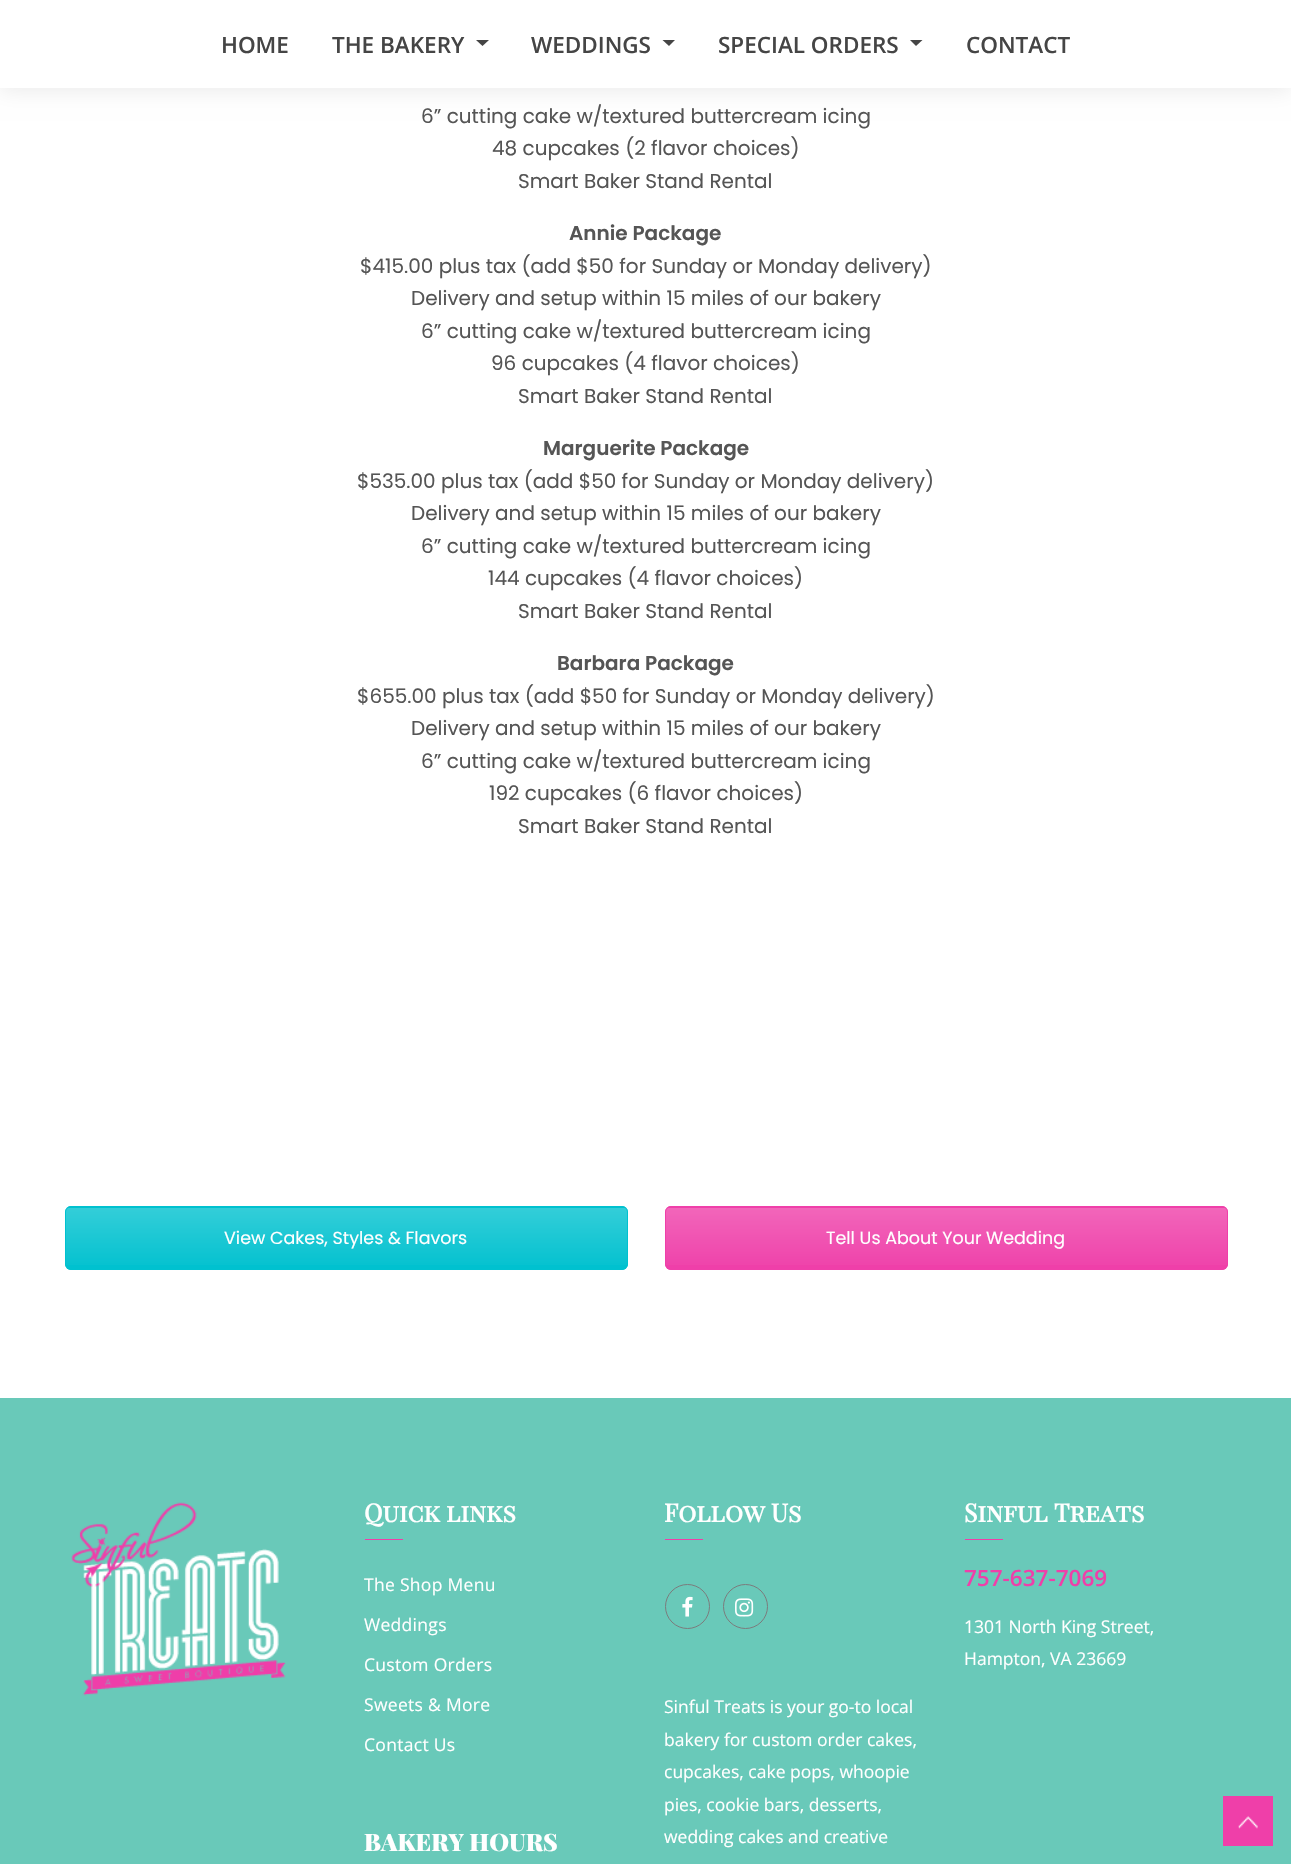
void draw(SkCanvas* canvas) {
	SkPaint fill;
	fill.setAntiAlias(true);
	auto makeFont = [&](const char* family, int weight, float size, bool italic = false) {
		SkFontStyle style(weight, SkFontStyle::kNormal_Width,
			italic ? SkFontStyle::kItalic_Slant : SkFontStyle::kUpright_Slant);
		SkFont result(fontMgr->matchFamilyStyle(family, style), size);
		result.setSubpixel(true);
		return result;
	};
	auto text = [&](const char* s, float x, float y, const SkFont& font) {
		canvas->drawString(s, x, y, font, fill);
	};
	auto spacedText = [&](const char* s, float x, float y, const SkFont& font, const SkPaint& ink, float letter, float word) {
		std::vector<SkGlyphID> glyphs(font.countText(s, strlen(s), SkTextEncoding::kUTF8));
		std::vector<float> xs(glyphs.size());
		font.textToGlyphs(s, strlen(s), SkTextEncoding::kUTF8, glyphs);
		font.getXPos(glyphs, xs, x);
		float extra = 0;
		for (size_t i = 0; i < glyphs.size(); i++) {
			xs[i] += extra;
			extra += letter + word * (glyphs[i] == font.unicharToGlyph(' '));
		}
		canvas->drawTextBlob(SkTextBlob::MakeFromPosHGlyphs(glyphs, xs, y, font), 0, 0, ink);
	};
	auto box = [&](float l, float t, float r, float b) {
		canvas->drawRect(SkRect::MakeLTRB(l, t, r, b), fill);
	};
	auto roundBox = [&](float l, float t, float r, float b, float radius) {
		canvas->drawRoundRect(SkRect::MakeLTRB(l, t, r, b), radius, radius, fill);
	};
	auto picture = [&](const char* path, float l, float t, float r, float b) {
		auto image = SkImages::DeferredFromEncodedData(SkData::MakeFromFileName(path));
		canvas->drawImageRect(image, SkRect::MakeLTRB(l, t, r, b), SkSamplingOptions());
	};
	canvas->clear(0xFFFFFFFF);
	fill.setColor(0x14000000);
	fill.setMaskFilter(SkMaskFilter::MakeBlur(kNormal_SkBlurStyle, 10));
	canvas->drawRect(SkRect::MakeLTRB(0, 4, 1291, 91), fill);
	fill.setMaskFilter(nullptr);
	fill.setColor(0xFFFFFFFF);
	box(0, 0, 1291, 88);
	fill.setColor(0xFF454545);
	canvas->drawPath(SkPathBuilder().moveTo(476, 40).lineTo(489, 40).lineTo(482.5f, 46).close().detach(), fill);
	canvas->drawPath(SkPathBuilder().moveTo(662.5f, 40).lineTo(675, 40).lineTo(669, 46).close().detach(), fill);
	canvas->drawPath(SkPathBuilder().moveTo(910, 40).lineTo(922.5f, 40).lineTo(916, 46).close().detach(), fill);
	fill.setColor(0xFF00C1CF);
	roundBox(65, 1206, 628, 1270, 6);
	canvas->save();
	canvas->clipPath(SkPathBuilder().moveTo(71, 1206).lineTo(622, 1206).cubicTo(625.5f, 1206, 628, 1208.5f, 628, 1212).lineTo(628, 1264).cubicTo(628, 1267.5f, 625.5f, 1270, 622, 1270).lineTo(71, 1270).cubicTo(67.5f, 1270, 65, 1267.5f, 65, 1264).lineTo(65, 1212).cubicTo(65, 1208.5f, 67.5f, 1206, 71, 1206).close().detach(), true);
	{
		const SkColor colors[] = {0x33FFFFFF, 0x03FFFFFF};
		const float stops[] = {0, 1};
		const SkPoint ends[] = {{346, 1208}, {346, 1269}};
		fill.setShader(SkGradientShader::MakeLinear(ends, colors, stops, 2, SkTileMode::kClamp));
		fill.setAlpha(255);
	}
	box(65, 1208, 628, 1265);
	canvas->restore();
	fill.setStyle(SkPaint::kStroke_Style);
	fill.setStrokeWidth(1);
	fill.setShader(nullptr);
	fill.setColor(0xFF00C1CF);
	canvas->drawRoundRect(SkRect::MakeLTRB(65.5f, 1206.5f, 627.5f, 1269.5f), 5.5f, 5.5f, fill);
	fill.setStyle(SkPaint::kFill_Style);
	fill.setColor(0xFFEF3FA9);
	roundBox(665, 1206, 1228, 1270, 6);
	canvas->save();
	canvas->clipPath(SkPathBuilder().moveTo(671, 1206).lineTo(1222, 1206).cubicTo(1225.5f, 1206, 1228, 1208.5f, 1228, 1212).lineTo(1228, 1264).cubicTo(1228, 1267.5f, 1225.5f, 1270, 1222, 1270).lineTo(671, 1270).cubicTo(667.5f, 1270, 665, 1267.5f, 665, 1264).lineTo(665, 1212).cubicTo(665, 1208.5f, 667.5f, 1206, 671, 1206).close().detach(), true);
	{
		const SkColor colors[] = {0x33FFFFFF, 0x03FFFFFF};
		const float stops[] = {0, 1};
		const SkPoint ends[] = {{946, 1208}, {946, 1269}};
		fill.setShader(SkGradientShader::MakeLinear(ends, colors, stops, 2, SkTileMode::kClamp));
		fill.setAlpha(255);
	}
	box(665, 1208, 1228, 1265);
	canvas->restore();
	fill.setStyle(SkPaint::kStroke_Style);
	fill.setShader(nullptr);
	fill.setColor(0xFFEF3FA9);
	canvas->drawRoundRect(SkRect::MakeLTRB(665.5f, 1206.5f, 1227.5f, 1269.5f), 5.5f, 5.5f, fill);
	fill.setStyle(SkPaint::kFill_Style);
	fill.setColor(0xFF69C9B9);
	box(0, 1398, 1291, 1864);
	picture("image0.png", 71, 1502, 286, 1696);
	fill.setColor(0xFFEF3FA9);
	box(365, 1539, 403, 1540);
	box(665, 1539, 703, 1540);
	fill.setStyle(SkPaint::kStroke_Style);
	fill.setColor(0xFF7B7B7C);
	canvas->drawCircle(687.5f, 1606.5f, 22, fill);
	picture("image1.png", 682, 1596, 693, 1617);
	canvas->drawCircle(745.5f, 1606.5f, 22, fill);
	picture("image2.png", 735, 1598, 754, 1617);
	fill.setStyle(SkPaint::kFill_Style);
	fill.setColor(0xFFEF3FA9);
	box(965, 1539, 1003, 1540);
	box(1223, 1796, 1273, 1846);
	picture("image3.png", 1238, 1816, 1258, 1829);
	auto font1 = makeFont("Open Sans", 600, 22.5f);
	fill.setColor(0xFF454545);
	text("HOME", 221, 53, font1);
	text("THE BAKERY", 332, 53, font1);
	text("WEDDINGS", 531, 53, font1);
	text("SPECIAL ORDERS", 718, 53, font1);
	text("CONTACT", 966, 53, font1);
	auto font2 = makeFont("Poppins", 400, 20);
	fill.setColor(0xFF555555);
	text("6” cutting cake w/textured buttercream icing", 421, 123, font2);
	text("48 cupcakes (2 flavor choices)", 492, 155, font2);
	text("Smart Baker Stand Rental", 518, 188, font2);
	auto font3 = makeFont("Poppins", 600, 20);
	text("Annie Package", 569, 240, font3);
	text("$415.00 plus tax (add $50 for Sunday or Monday delivery)", 360, 273, font2);
	text("Delivery and setup within 15 miles of our bakery", 411, 305, font2);
	text("6” cutting cake w/textured buttercream icing", 421, 338, font2);
	text("96 cupcakes (4 flavor choices)", 491, 370, font2);
	text("Smart Baker Stand Rental", 518, 403, font2);
	text("Marguerite Package", 543, 455, font3);
	text("$535.00 plus tax (add $50 for Sunday or Monday delivery)", 357, 488, font2);
	text("Delivery and setup within 15 miles of our bakery", 411, 520, font2);
	text("6” cutting cake w/textured buttercream icing", 421, 553, font2);
	text("144 cupcakes (4 flavor choices)", 488, 585, font2);
	text("Smart Baker Stand Rental", 518, 618, font2);
	text("Barbara Package", 557, 670, font3);
	text("$655.00 plus tax (add $50 for Sunday or Monday delivery)", 357, 703, font2);
	text("Delivery and setup within 15 miles of our bakery", 411, 735, font2);
	text("6” cutting cake w/textured buttercream icing", 421, 768, font2);
	text("192 cupcakes (6 flavor choices)", 489, 800, font2);
	text("Smart Baker Stand Rental", 518, 833, font2);
	auto font4 = makeFont("Poppins", 400, 17.5f);
	fill.setColor(0xFFFFFFFF);
	text("View Cakes, Styles & Flavors", 224, 1244, font4);
	text("Tell Us About Your Wedding", 826, 1244, font4);
	auto font5 = makeFont("Playfair Display SC", 700, 25);
	text("Quick links", 364, 1522, font5);
	auto font6 = makeFont("Open Sans", 400, 17.5f);
	spacedText("The Shop Menu", 364, 1591, font6, fill, 0.3f, 0);
	spacedText("Weddings", 364, 1631, font6, fill, 0.3f, 0);
	spacedText("Custom Orders", 364, 1671, font6, fill, 0.3f, 0);
	spacedText("Sweets & More", 364, 1711, font6, fill, 0.3f, 0);
	spacedText("Contact Us", 364, 1751, font6, fill, 0.3f, 0);
	auto font7 = makeFont("Playfair Display", 900, 24);
	text("BAKERY HOURS", 364, 1851, font7);
	text("Follow Us", 664, 1522, font5);
	text("Sinful Treats is your go-to local", 664, 1713, font6);
	text("bakery for custom order cakes,", 664, 1746, font6);
	text("cupcakes, cake pops, whoopie", 664, 1778, font6);
	text("pies, cookie bars, desserts,", 664, 1811, font6);
	text("wedding cakes and creative", 664, 1843, font6);
	text("Sinful Treats", 964, 1522, font5);
	fill.setColor(0xFFEF3FA9);
	text("757-637-7069", 964, 1586, font1);
	fill.setColor(0xFFFFFFFF);
	text("1301 North King Street,", 964, 1633, font6);
	text("Hampton, VA 23669", 964, 1665, font6);
}
